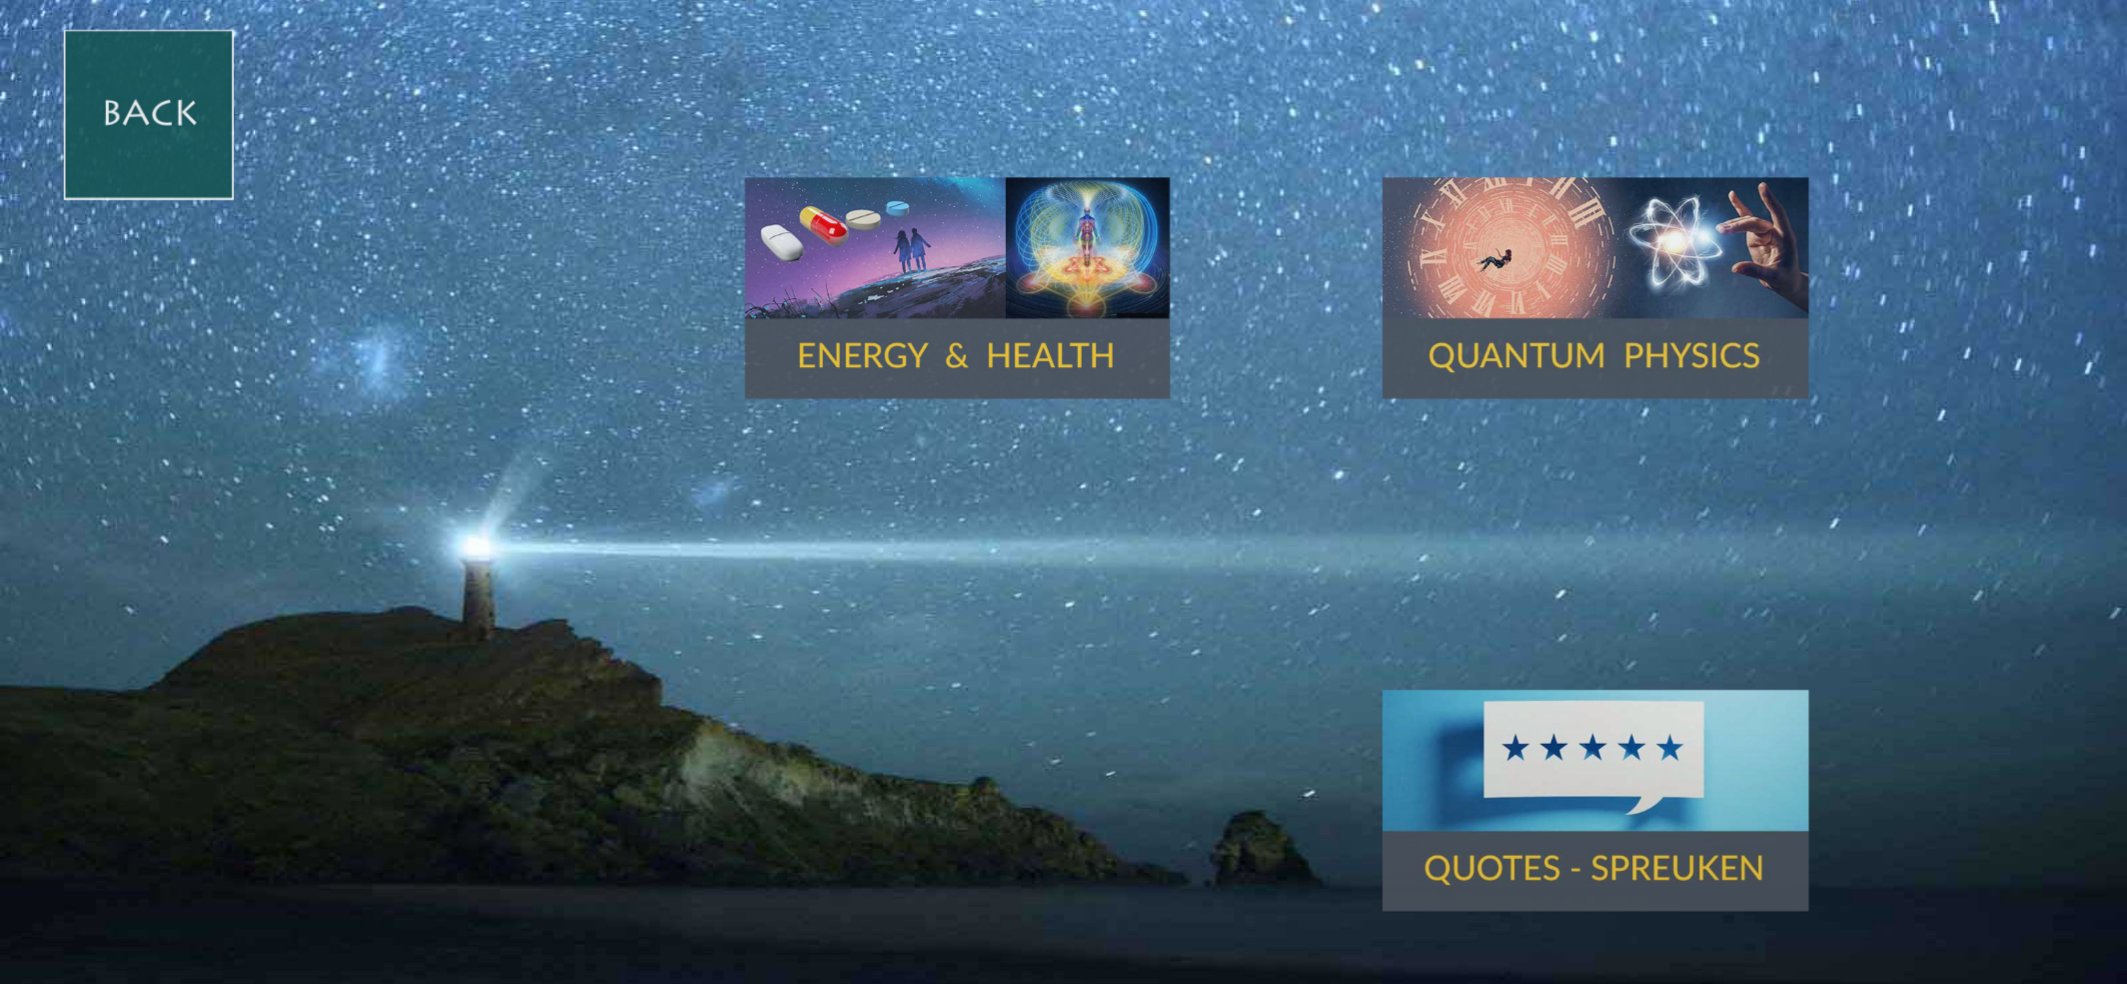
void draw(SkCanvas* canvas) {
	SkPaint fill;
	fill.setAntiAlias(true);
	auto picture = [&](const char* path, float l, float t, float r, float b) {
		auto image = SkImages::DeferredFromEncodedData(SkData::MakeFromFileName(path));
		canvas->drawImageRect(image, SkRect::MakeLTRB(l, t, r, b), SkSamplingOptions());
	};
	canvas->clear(0xFFFFFFFF);
	picture("image0.png", 0, 0, 2127, 984);
	picture("image1.png", 63, 29, 234, 201);
	picture("image2.png", 744, 177, 1171, 400);
	picture("image3.png", 1382, 177, 1810, 400);
	picture("image4.png", 1382, 689, 1810, 912);
}
